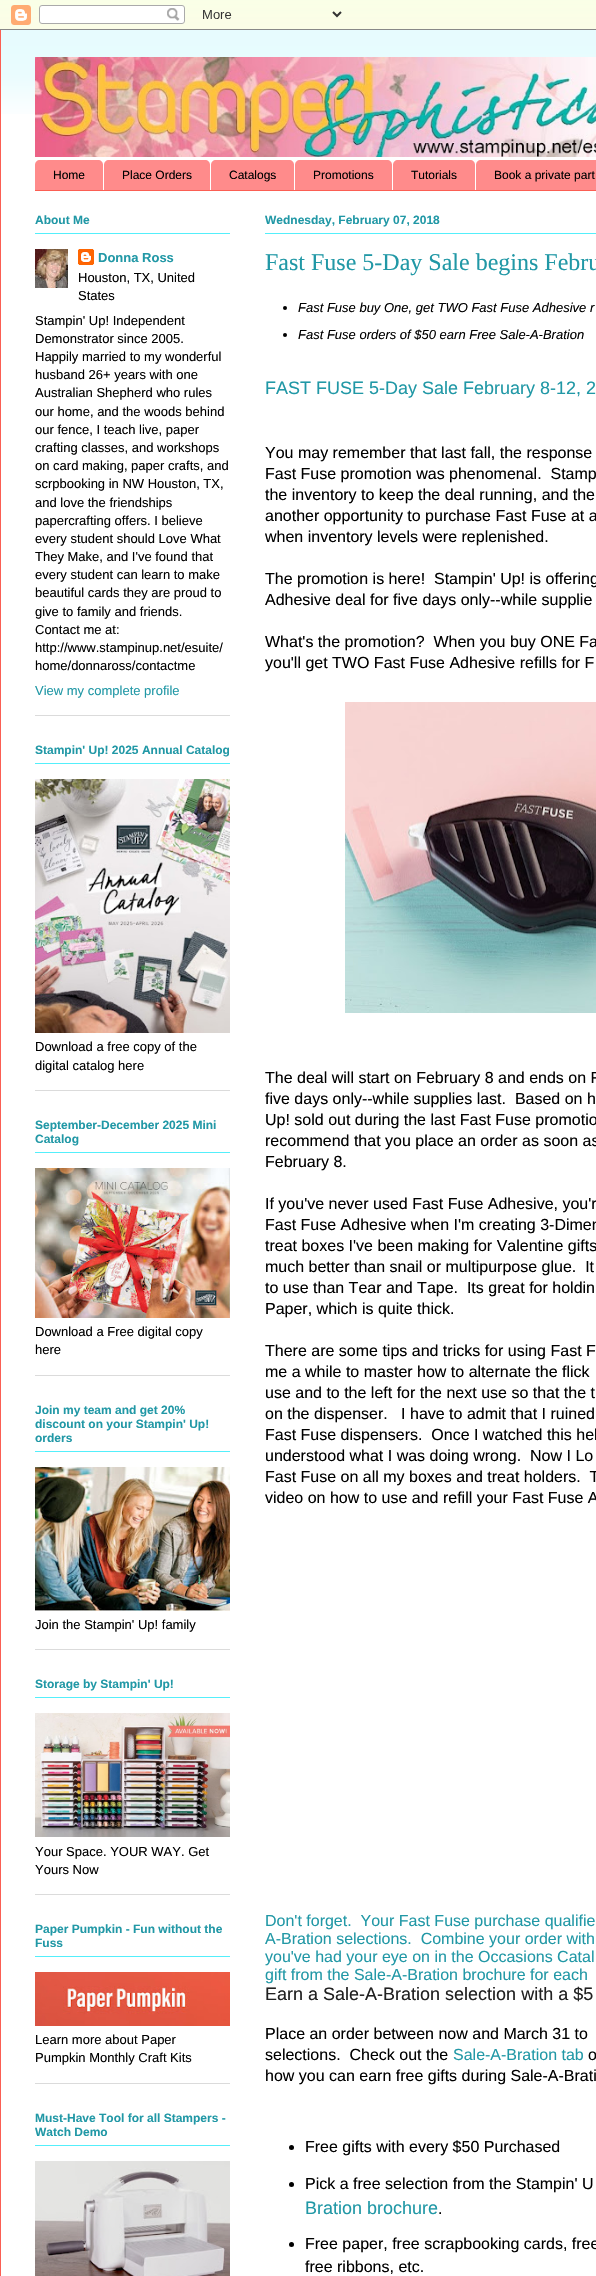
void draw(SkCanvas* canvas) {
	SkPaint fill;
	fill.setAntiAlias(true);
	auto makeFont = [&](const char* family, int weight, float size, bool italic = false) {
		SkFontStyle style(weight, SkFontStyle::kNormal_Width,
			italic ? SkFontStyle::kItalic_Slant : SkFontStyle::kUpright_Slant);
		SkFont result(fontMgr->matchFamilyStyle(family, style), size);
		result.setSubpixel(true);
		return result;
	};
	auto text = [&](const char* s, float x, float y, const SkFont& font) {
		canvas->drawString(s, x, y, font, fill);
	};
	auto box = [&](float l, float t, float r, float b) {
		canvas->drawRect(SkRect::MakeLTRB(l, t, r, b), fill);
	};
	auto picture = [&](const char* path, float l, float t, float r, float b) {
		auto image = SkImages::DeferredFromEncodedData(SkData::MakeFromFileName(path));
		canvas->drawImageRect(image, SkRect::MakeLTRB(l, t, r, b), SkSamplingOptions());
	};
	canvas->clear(0xFFFFFFFF);
	picture("image0.png", 0, 0, 596, 29);
	picture("image1.png", 0, 0, 596, 30);
	picture("image2.png", 1, 30, 596, 114);
	fill.setColor(0xFFFB5E53);
	box(0, 30, 1, 2276);
	picture("image3.png", 35, 57, 596, 157);
	box(35, 190, 596, 191);
	fill.setColor(0xFFFF8B8B);
	canvas->drawPath(SkPathBuilder().moveTo(40, 160).lineTo(98, 160).cubicTo(101, 160, 103, 162, 103, 165).lineTo(103, 190).lineTo(35, 190).lineTo(35, 165).cubicTo(35, 162, 37, 160, 40, 160).close().detach(), fill);
	canvas->drawPath(SkPathBuilder().moveTo(109, 160).lineTo(205, 160).cubicTo(208, 160, 210, 162, 210, 165).lineTo(210, 190).lineTo(104, 190).lineTo(104, 165).cubicTo(104, 162, 106, 160, 109, 160).close().detach(), fill);
	canvas->drawPath(SkPathBuilder().moveTo(216, 160).lineTo(289, 160).cubicTo(292, 160, 294, 162, 294, 165).lineTo(294, 190).lineTo(211, 190).lineTo(211, 165).cubicTo(211, 162, 213, 160, 216, 160).close().detach(), fill);
	canvas->drawPath(SkPathBuilder().moveTo(300, 160).lineTo(387, 160).cubicTo(390, 160, 392, 162, 392, 165).lineTo(392, 190).lineTo(295, 190).lineTo(295, 165).cubicTo(295, 162, 297, 160, 300, 160).close().detach(), fill);
	canvas->drawPath(SkPathBuilder().moveTo(398, 160).lineTo(470, 160).cubicTo(473, 160, 475, 162, 475, 165).lineTo(475, 190).lineTo(393, 190).lineTo(393, 165).cubicTo(393, 162, 395, 160, 398, 160).close().detach(), fill);
	canvas->drawPath(SkPathBuilder().moveTo(481, 160).lineTo(596, 160).cubicTo(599, 160, 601, 162, 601, 165).lineTo(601, 190).lineTo(476, 190).lineTo(476, 165).cubicTo(476, 162, 478, 160, 481, 160).close().detach(), fill);
	fill.setColor(0xFFDBDBDB);
	box(35, 715, 230, 716);
	fill.setColor(0xFF53EFFB);
	box(35, 233, 230, 234);
	picture("image4.png", 35, 249, 68, 288);
	picture("image5.png", 78, 249, 94, 265);
	fill.setColor(0xFFDBDBDB);
	box(35, 1090, 230, 1091);
	fill.setColor(0xFF53EFFB);
	box(35, 763, 230, 764);
	picture("image6.png", 35, 779, 230, 1033);
	fill.setColor(0xFFDBDBDB);
	box(35, 1375, 230, 1376);
	fill.setColor(0xFF53EFFB);
	box(35, 1152, 230, 1153);
	picture("image7.png", 35, 1168, 230, 1318);
	fill.setColor(0xFFDBDBDB);
	box(35, 1649, 230, 1650);
	fill.setColor(0xFF53EFFB);
	box(35, 1451, 230, 1452);
	picture("image8.png", 35, 1467, 230, 1611);
	fill.setColor(0xFFDBDBDB);
	box(35, 1894, 230, 1895);
	fill.setColor(0xFF53EFFB);
	box(35, 1697, 230, 1698);
	picture("image9.png", 35, 1713, 230, 1837);
	fill.setColor(0xFFDBDBDB);
	box(35, 2083, 230, 2084);
	fill.setColor(0xFF53EFFB);
	box(35, 1956, 230, 1957);
	picture("image10.png", 35, 1972, 230, 2026);
	box(35, 2145, 230, 2146);
	picture("image11.png", 35, 2161, 230, 2276);
	box(265, 233, 596, 234);
	fill.setColor(0xFF000000);
	canvas->drawCircle(285, 308, 2, fill);
	canvas->drawCircle(285, 335, 2, fill);
	picture("image12.png", 345, 702, 596, 1013);
	canvas->drawCircle(291.5f, 2147.5f, 2.5f, fill);
	canvas->drawCircle(291.5f, 2184.5f, 2.5f, fill);
	canvas->drawCircle(291.5f, 2244.5f, 2.5f, fill);
	auto font1 = makeFont("Liberation Sans", 400, 12);
	text("Home", 53, 179, font1);
	text("Place Orders", 122, 179, font1);
	text("Catalogs", 229, 179, font1);
	text("Promotions", 313, 179, font1);
	text("Tutorials", 411, 179, font1);
	text("Book a private part", 494, 179, font1);
	auto font2 = makeFont("Liberation Sans", 700, 12);
	fill.setColor(0xFF2198A6);
	text("About Me", 35, 224, font2);
	auto font3 = makeFont("Liberation Sans", 700, 13);
	text("Donna Ross", 98, 262, font3);
	auto font4 = makeFont("Liberation Sans", 400, 13);
	fill.setColor(0xFF000000);
	text("Houston, TX, United", 78, 282, font4);
	text("States", 78, 300, font4);
	text("Stampin' Up! Independent", 35, 325, font4);
	text("Demonstrator since 2005.", 35, 343, font4);
	text("Happily married to my wonderful", 35, 361, font4);
	text("husband 26+ years with one", 35, 379, font4);
	text("Australian Shepherd who rules", 35, 397, font4);
	text("our home, and the woods behind", 35, 416, font4);
	text("our fence, I teach live, paper", 35, 434, font4);
	text("crafting classes, and workshops", 35, 452, font4);
	text("on card making, paper crafts, and", 35, 470, font4);
	text("scrpbooking in NW Houston, TX,", 35, 488, font4);
	text("and love the friendships", 35, 507, font4);
	text("papercrafting offers. I believe", 35, 525, font4);
	text("every student should Love What", 35, 543, font4);
	text("They Make, and I've found that", 35, 561, font4);
	text("every student can learn to make", 35, 579, font4);
	text("beautiful cards they are proud to", 35, 597, font4);
	text("give to family and friends.", 35, 616, font4);
	text("Contact me at:", 35, 634, font4);
	text("http://www.stampinup.net/esuite/", 35, 652, font4);
	text("home/donnaross/contactme", 35, 670, font4);
	fill.setColor(0xFF2198A6);
	text("View my complete profile", 35, 695, font4);
	text("Stampin' Up! 2025 Annual Catalog", 35, 754, font2);
	fill.setColor(0xFF000000);
	text("Download a free copy of the", 35, 1051, font4);
	text("digital catalog here", 35, 1070, font4);
	fill.setColor(0xFF2198A6);
	text("September-December 2025 Mini", 35, 1129, font2);
	text("Catalog", 35, 1143, font2);
	fill.setColor(0xFF000000);
	text("Download a Free digital copy", 35, 1336, font4);
	text("here", 35, 1354, font4);
	fill.setColor(0xFF2198A6);
	text("Join my team and get 20%", 35, 1414, font2);
	text("discount on your Stampin' Up!", 35, 1428, font2);
	text("orders", 35, 1442, font2);
	fill.setColor(0xFF000000);
	text("Join the Stampin' Up! family", 35, 1629, font4);
	fill.setColor(0xFF2198A6);
	text("Storage by Stampin' Up!", 35, 1688, font2);
	fill.setColor(0xFF000000);
	text("Your Space. YOUR WAY. Get", 35, 1856, font4);
	text("Yours Now", 35, 1874, font4);
	fill.setColor(0xFF2198A6);
	text("Paper Pumpkin - Fun without the", 35, 1933, font2);
	text("Fuss", 35, 1947, font2);
	fill.setColor(0xFF000000);
	text("Learn more about Paper", 35, 2044, font4);
	text("Pumpkin Monthly Craft Kits", 35, 2062, font4);
	fill.setColor(0xFF2198A6);
	text("Must-Have Tool for all Stampers -", 35, 2122, font2);
	text("Watch Demo", 35, 2136, font2);
	text("Wednesday, February 07, 2018", 265, 224, font2);
	auto font5 = makeFont("Liberation Serif", 400, 24);
	text("Fast Fuse 5-Day Sale begins Febru", 265, 270, font5);
	auto font6 = makeFont("Liberation Sans", 400, 13, true);
	fill.setColor(0xFF000000);
	text("Fast Fuse buy One, get TWO Fast Fuse Adhesive r", 298, 312, font6);
	text("Fast Fuse orders of $50 earn Free Sale-A-Bration", 298, 339, font6);
	auto font7 = makeFont("Liberation Sans", 400, 18);
	fill.setColor(0xFF2198A6);
	text("FAST FUSE 5-Day Sale February 8-12, 2", 265, 394, font7);
	auto font8 = makeFont("Liberation Sans", 400, 16);
	fill.setColor(0xFF000000);
	text("You may remember that last fall, the response", 265, 458, font8);
	text("Fast Fuse promotion was phenomenal.  Stamp", 265, 479, font8);
	text("the inventory to keep the deal running, and the", 265, 500, font8);
	text("another opportunity to purchase Fast Fuse at a", 265, 521, font8);
	text("when inventory levels were replenished.", 265, 542, font8);
	text("The promotion is here!  Stampin' Up! is offering", 265, 584, font8);
	text("Adhesive deal for five days only--while supplie", 265, 605, font8);
	text("What's the promotion?  When you buy ONE Fa", 265, 647, font8);
	text("you'll get TWO Fast Fuse Adhesive refills for F", 265, 668, font8);
	text("The deal will start on February 8 and ends on F", 265, 1083, font8);
	text("five days only--while supplies last.  Based on h", 265, 1104, font8);
	text("Up! sold out during the last Fast Fuse promotio", 265, 1125, font8);
	text("recommend that you place an order as soon as", 265, 1146, font8);
	text("February 8.", 265, 1167, font8);
	text("If you've never used Fast Fuse Adhesive, you'r", 265, 1209, font8);
	text("Fast Fuse Adhesive when I'm creating 3-Dimen", 265, 1230, font8);
	text("treat boxes I've been making for Valentine gifts", 265, 1251, font8);
	text("much better than snail or multipurpose glue.  It", 265, 1272, font8);
	text("to use than Tear and Tape.  Its great for holdin", 265, 1293, font8);
	text("Paper, which is quite thick.", 265, 1314, font8);
	text("There are some tips and tricks for using Fast F", 265, 1356, font8);
	text("me a while to master how to alternate the flick", 265, 1377, font8);
	text("use and to the left for the next use so that the t", 265, 1398, font8);
	text("on the dispenser.   I have to admit that I ruined", 265, 1419, font8);
	text("Fast Fuse dispensers.  Once I watched this hel", 265, 1440, font8);
	text("understood what I was doing wrong.  Now I Lo", 265, 1461, font8);
	text("Fast Fuse on all my boxes and treat holders.  T", 265, 1482, font8);
	text("video on how to use and refill your Fast Fuse A", 265, 1503, font8);
	fill.setColor(0xFF2198A6);
	text("Don't forget.  Your Fast Fuse purchase qualifie", 265, 1926, font8);
	text("A-Bration selections.  Combine your order with", 265, 1944, font8);
	text("you've had your eye on in the Occasions Catal", 265, 1962, font8);
	text("gift from the Sale-A-Bration brochure for each", 265, 1980, font8);
	fill.setColor(0xFF212121);
	text("Earn a Sale-A-Bration selection with a $5", 265, 2000, font7);
	fill.setColor(0xFF000000);
	text("Place an order between now and March 31 to", 265, 2039, font8);
	text("selections.  Check out the", 265, 2060, font8);
	fill.setColor(0xFF2198A6);
	text("Sale-A-Bration tab", 453, 2060, font8);
	fill.setColor(0xFF000000);
	text("o", 588, 2060, font8);
	text("how you can earn free gifts during Sale-A-Brati", 265, 2081, font8);
	text("Free gifts with every $50 Purchased", 305, 2152, font8);
	text("Pick a free selection from the Stampin' U", 305, 2189, font8);
	fill.setColor(0xFF2198A6);
	text("Bration brochure", 305, 2214, font7);
	fill.setColor(0xFF000000);
	text(".", 438, 2214, font8);
	text("Free paper, free scrapbooking cards, free", 305, 2249, font8);
	text("free ribbons, etc.", 305, 2272, font8);
}
